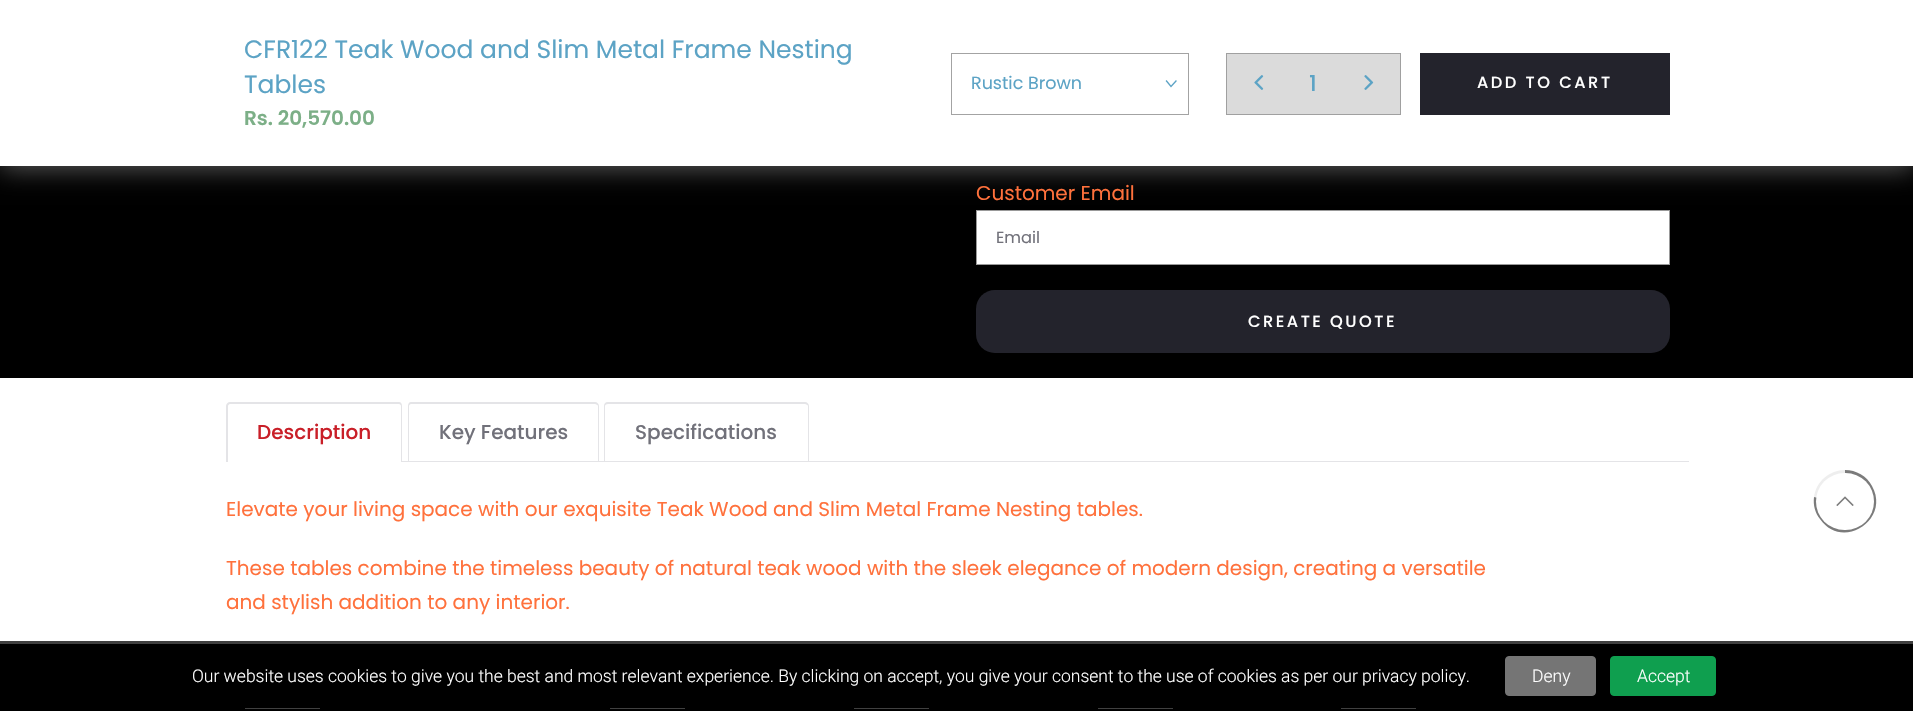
void draw(SkCanvas* canvas) {
	SkPaint fill;
	fill.setAntiAlias(true);
	auto makeFont = [&](const char* family, int weight, float size, bool italic = false) {
		SkFontStyle style(weight, SkFontStyle::kNormal_Width,
			italic ? SkFontStyle::kItalic_Slant : SkFontStyle::kUpright_Slant);
		SkFont result(fontMgr->matchFamilyStyle(family, style), size);
		result.setSubpixel(true);
		return result;
	};
	auto text = [&](const char* s, float x, float y, const SkFont& font) {
		canvas->drawString(s, x, y, font, fill);
	};
	auto spacedText = [&](const char* s, float x, float y, const SkFont& font, const SkPaint& ink, float letter, float word) {
		std::vector<SkGlyphID> glyphs(font.countText(s, strlen(s), SkTextEncoding::kUTF8));
		std::vector<float> xs(glyphs.size());
		font.textToGlyphs(s, strlen(s), SkTextEncoding::kUTF8, glyphs);
		font.getXPos(glyphs, xs, x);
		float extra = 0;
		for (size_t i = 0; i < glyphs.size(); i++) {
			xs[i] += extra;
			extra += letter + word * (glyphs[i] == font.unicharToGlyph(' '));
		}
		canvas->drawTextBlob(SkTextBlob::MakeFromPosHGlyphs(glyphs, xs, y, font), 0, 0, ink);
	};
	auto box = [&](float l, float t, float r, float b) {
		canvas->drawRect(SkRect::MakeLTRB(l, t, r, b), fill);
	};
	auto roundBox = [&](float l, float t, float r, float b, float radius) {
		canvas->drawRoundRect(SkRect::MakeLTRB(l, t, r, b), radius, radius, fill);
	};
	auto picture = [&](const char* path, float l, float t, float r, float b) {
		auto image = SkImages::DeferredFromEncodedData(SkData::MakeFromFileName(path));
		canvas->drawImageRect(image, SkRect::MakeLTRB(l, t, r, b), SkSamplingOptions());
	};
	canvas->clear(0xFF000000);
	fill.setColor(0x80BABABA);
	fill.setMaskFilter(SkMaskFilter::MakeBlur(kNormal_SkBlurStyle, 12.5f));
	canvas->drawRect(SkRect::MakeLTRB(0, 1, 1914, 168), fill);
	fill.setMaskFilter(nullptr);
	fill.setColor(0xFFFFFFFF);
	box(0, 0, 1913, 166);
	fill.setStyle(SkPaint::kStroke_Style);
	fill.setStrokeWidth(1);
	fill.setColor(0xFFA3A3A3);
	canvas->drawRect(SkRect::MakeLTRB(951.5f, 53.5f, 1188.5f, 114.5f), fill);
	fill.setStrokeWidth(1.3f);
	fill.setStrokeCap(SkPaint::kSquare_Cap);
	fill.setColor(0xFF5CA3C5);
	canvas->drawPath(SkPathBuilder().moveTo(1176, 81).lineTo(1171, 86.5f).lineTo(1166.5f, 81).detach(), fill);
	fill.setStyle(SkPaint::kFill_Style);
	fill.setColor(0xFFDBDBDB);
	canvas->drawRect(SkRect::MakeLTRB(1226.5f, 53.5f, 1400.5f, 114.5f), fill);
	fill.setStyle(SkPaint::kStroke_Style);
	fill.setStrokeWidth(1);
	fill.setStrokeCap(SkPaint::kButt_Cap);
	fill.setColor(0xFFA0A0A0);
	canvas->drawRect(SkRect::MakeLTRB(1226.5f, 53.5f, 1400.5f, 114.5f), fill);
	picture("image0.png", 1254, 75, 1264, 90);
	picture("image1.png", 1364, 75, 1374, 90);
	fill.setStyle(SkPaint::kFill_Style);
	fill.setColor(0xFF23232C);
	box(1420, 53, 1670, 115);
	fill.setColor(0xFFFFFFFF);
	canvas->drawRect(SkRect::MakeLTRB(976.5f, 210.5f, 1669.5f, 264.5f), fill);
	fill.setStyle(SkPaint::kStroke_Style);
	fill.setColor(0xFF999999);
	canvas->drawRect(SkRect::MakeLTRB(976.5f, 210.5f, 1669.5f, 264.5f), fill);
	fill.setStyle(SkPaint::kFill_Style);
	fill.setColor(0xFF23232C);
	roundBox(976, 290, 1670, 353, 19);
	fill.setColor(0xFFFFFFFF);
	box(0, 378, 1913, 644);
	fill.setColor(0xFFE4E4E7);
	canvas->drawPath(SkPathBuilder(SkPathFillType::kEvenOdd).moveTo(230, 402).lineTo(399, 402).cubicTo(401, 402, 402, 404, 402, 406).lineTo(402, 462).lineTo(226, 462).lineTo(226, 406).cubicTo(226, 404, 228, 402, 230, 402).close().moveTo(230, 404).lineTo(399, 404).cubicTo(400, 404, 401, 405, 401, 406).lineTo(401, 462).lineTo(228, 462).lineTo(228, 406).cubicTo(228, 405, 229, 404, 230, 404).close().detach(), fill);
	box(402, 461, 1689, 462);
	canvas->drawPath(SkPathBuilder(SkPathFillType::kEvenOdd).moveTo(411, 402).lineTo(595, 402).cubicTo(597, 402, 599, 404, 599, 406).lineTo(599, 462).lineTo(408, 462).lineTo(408, 406).cubicTo(408, 404, 409, 402, 411, 402).close().moveTo(411, 404).lineTo(595, 404).cubicTo(596, 404, 598, 405, 598, 406).lineTo(598, 462).lineTo(409, 462).lineTo(409, 406).cubicTo(409, 405, 410, 404, 411, 404).close().detach(), fill);
	canvas->drawPath(SkPathBuilder(SkPathFillType::kEvenOdd).moveTo(608, 402).lineTo(805, 402).cubicTo(807, 402, 809, 404, 809, 406).lineTo(809, 462).lineTo(604, 462).lineTo(604, 406).cubicTo(604, 404, 605, 402, 608, 402).close().moveTo(608, 404).lineTo(805, 404).cubicTo(806, 404, 808, 405, 808, 406).lineTo(808, 462).lineTo(605, 462).lineTo(605, 406).cubicTo(605, 405, 606, 404, 608, 404).close().detach(), fill);
	fill.setColor(0xFFFFFFFF);
	box(245, 708, 320, 709);
	box(610, 708, 685, 709);
	box(854, 708, 929, 709);
	box(1098, 708, 1173, 709);
	box(1341, 708, 1416, 709);
	fill.setColor(0xFF7B7B7B);
	canvas->drawPath(SkPathBuilder().moveTo(1845, 501).lineTo(1845, 470).cubicTo(1856, 470, 1867, 476, 1872, 486).cubicTo(1891, 520, 1842, 551, 1820, 519).cubicTo(1815, 513, 1813, 505, 1814, 497).close().detach(), fill);
	fill.setColor(0xFFEEEEEE);
	canvas->drawPath(SkPathBuilder().moveTo(1845, 501).lineTo(1814, 497).cubicTo(1816, 481.5f, 1829.5f, 470, 1845, 470).close().detach(), fill);
	fill.setColor(0xFFFFFFFF);
	roundBox(1816, 473, 1874, 530, 28.5f);
	picture("image2.png", 1836, 496, 1854, 506);
	fill.setColor(0xBF000000);
	box(0, 641, 1913, 709);
	fill.setColor(0xFF757575);
	canvas->drawRoundRect(SkRect::MakeLTRB(1505.5f, 656.5f, 1595.5f, 695.5f), 3.5f, 3.5f, fill);
	fill.setStyle(SkPaint::kStroke_Style);
	canvas->drawRoundRect(SkRect::MakeLTRB(1505.5f, 656.5f, 1595.5f, 695.5f), 3.5f, 3.5f, fill);
	fill.setStyle(SkPaint::kFill_Style);
	fill.setColor(0xFF0F9F4F);
	canvas->drawRoundRect(SkRect::MakeLTRB(1610.5f, 656.5f, 1715.5f, 695.5f), 3.5f, 3.5f, fill);
	fill.setStyle(SkPaint::kStroke_Style);
	canvas->drawRoundRect(SkRect::MakeLTRB(1610.5f, 656.5f, 1715.5f, 695.5f), 3.5f, 3.5f, fill);
	auto font1 = makeFont("Poppins", 400, 25);
	fill.setStyle(SkPaint::kFill_Style);
	fill.setColor(0xFF5CA3C5);
	text("CFR122 Teak Wood and Slim Metal Frame Nesting", 244, 58, font1);
	text("Tables", 244, 93, font1);
	auto font2 = makeFont("Poppins", 600, 20);
	fill.setColor(0xFF7CAF87);
	text("Rs. 20,570.00", 244, 125, font2);
	auto font3 = makeFont("Poppins", 400, 17.5f);
	fill.setColor(0xFF5CA3C5);
	text("Rustic Brown", 971, 89, font3);
	auto font4 = makeFont("Poppins", 500, 22);
	text("1", 1309, 91, font4);
	auto font5 = makeFont("Poppins", 500, 16.25f);
	fill.setColor(0xFFFFFFFF);
	spacedText("ADD TO CART", 1477, 88, font5, fill, 2.5f, 0);
	auto font6 = makeFont("Poppins", 400, 20);
	fill.setColor(0xFFFF713C);
	text("Customer Email", 976, 200, font6);
	auto font7 = makeFont("Poppins", 400, 16.25f);
	fill.setColor(0xFF71717A);
	text("Email", 996, 243, font7);
	fill.setColor(0xFFFFFFFF);
	spacedText("CREATE QUOTE", 1248, 327, font5, fill, 2.5f, 0);
	auto font8 = makeFont("Poppins", 500, 20);
	fill.setColor(0xFFC91F28);
	text("Description", 257, 439, font8);
	fill.setColor(0xFF71717A);
	text("Key Features", 439, 439, font8);
	text("Specifications", 635, 439, font8);
	fill.setColor(0xFFFF713C);
	text("Elevate your living space with our exquisite Teak Wood and Slim Metal Frame Nesting tables.", 226, 516, font6);
	text("These tables combine the timeless beauty of natural teak wood with the sleek elegance of modern design, creating a versatile", 226, 575, font6);
	text("and stylish addition to any interior.", 226, 609, font6);
	auto font9 = makeFont("Roboto", 300, 17.5f);
	fill.setColor(0xFFFFFFFF);
	text("Our website uses cookies to give you the best and most relevant experience. By clicking on accept, you give your consent to the use of cookies as per our privacy policy.", 192, 682, font9);
	text("Deny", 1532, 682, font9);
	text("Accept", 1637, 682, font9);
}
